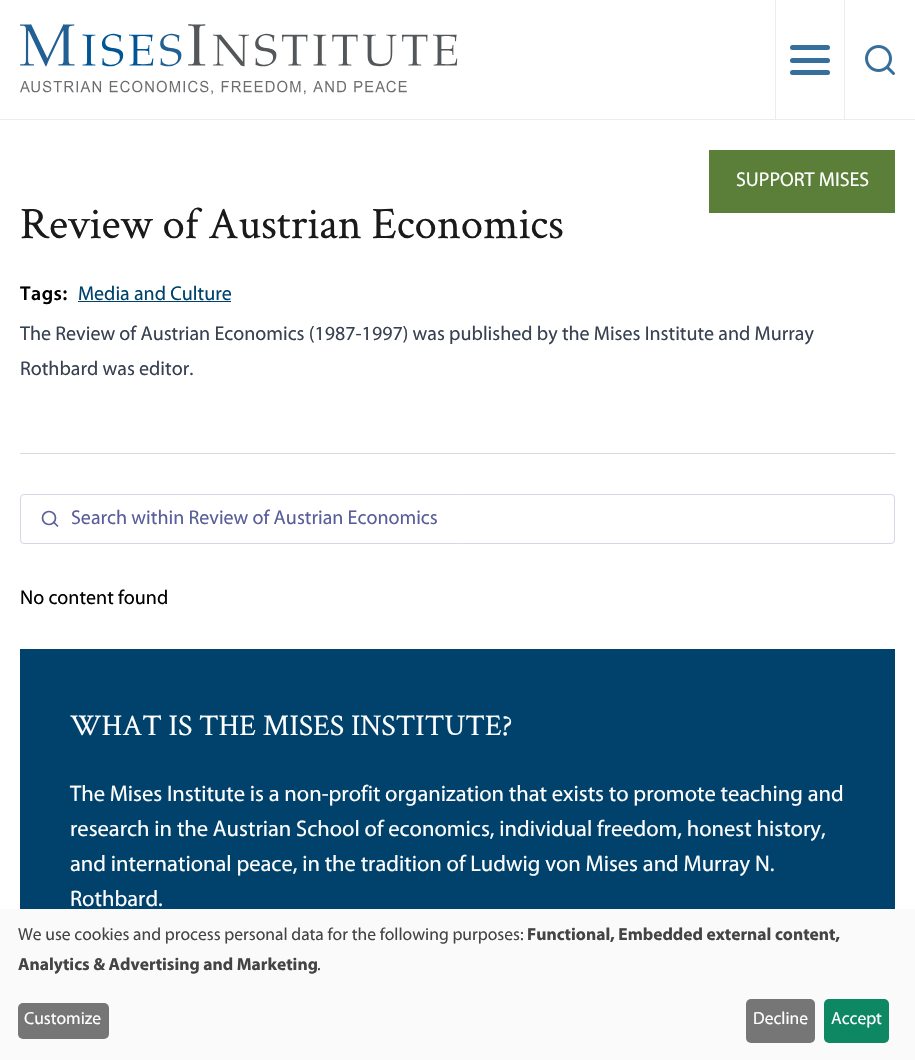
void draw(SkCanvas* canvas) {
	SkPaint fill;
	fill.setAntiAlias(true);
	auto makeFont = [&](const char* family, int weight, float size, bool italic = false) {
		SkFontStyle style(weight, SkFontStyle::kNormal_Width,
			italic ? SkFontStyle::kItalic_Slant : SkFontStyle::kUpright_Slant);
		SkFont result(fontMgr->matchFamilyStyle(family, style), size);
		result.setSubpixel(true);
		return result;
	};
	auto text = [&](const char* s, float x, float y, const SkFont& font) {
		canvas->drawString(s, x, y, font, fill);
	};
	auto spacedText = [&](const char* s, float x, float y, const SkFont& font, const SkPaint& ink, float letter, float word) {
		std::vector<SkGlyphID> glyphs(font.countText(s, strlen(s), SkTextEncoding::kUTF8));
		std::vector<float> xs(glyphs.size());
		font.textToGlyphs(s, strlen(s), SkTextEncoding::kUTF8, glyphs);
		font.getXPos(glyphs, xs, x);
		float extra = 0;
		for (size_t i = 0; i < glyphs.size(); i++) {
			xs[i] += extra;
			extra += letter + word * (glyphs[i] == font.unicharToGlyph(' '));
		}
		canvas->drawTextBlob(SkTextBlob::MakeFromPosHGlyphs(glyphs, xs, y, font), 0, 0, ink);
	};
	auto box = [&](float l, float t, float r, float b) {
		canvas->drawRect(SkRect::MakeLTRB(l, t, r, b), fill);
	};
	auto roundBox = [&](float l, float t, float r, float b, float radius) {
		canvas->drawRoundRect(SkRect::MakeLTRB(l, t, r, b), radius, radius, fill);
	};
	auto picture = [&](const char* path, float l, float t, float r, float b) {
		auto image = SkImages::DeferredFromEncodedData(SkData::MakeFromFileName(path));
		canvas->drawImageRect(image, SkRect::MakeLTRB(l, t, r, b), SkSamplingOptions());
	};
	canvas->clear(0xFFFFFFFF);
	fill.setColor(0xFFECECEC);
	box(0, 119, 915, 120);
	picture("image0.png", 20, 24, 458, 95);
	box(844, 0, 845, 119);
	box(775, 0, 776, 119);
	fill.setColor(0xFF366E9C);
	roundBox(790, 45, 830, 50, 2.5f);
	roundBox(790, 58, 830, 63, 2.5f);
	roundBox(790, 70, 830, 75, 2.5f);
	picture("image1.png", 865, 45, 895, 75);
	fill.setColor(0xFF5B7F39);
	box(709, 150, 895, 213);
	fill.setColor(0xFFD9D9D9);
	box(20, 453, 895, 454);
	fill.setColor(0xFF00426B);
	box(78, 301, 231, 302);
	fill.setStyle(SkPaint::kStroke_Style);
	fill.setStrokeWidth(1);
	fill.setColor(0xFFD6D6E7);
	canvas->drawRoundRect(SkRect::MakeLTRB(20.5f, 494.5f, 894.5f, 543.5f), 3.5f, 3.5f, fill);
	fill.setStrokeWidth(1.7f);
	fill.setColor(0xFF5A5E9A);
	canvas->drawCircle(49, 518, 6.5f, fill);
	fill.setStrokeCap(SkPaint::kRound_Cap);
	fill.setStrokeJoin(SkPaint::kRound_Join);
	canvas->drawPath(SkPathBuilder().moveTo(57.5f, 526).lineTo(54, 522.5f).detach(), fill);
	fill.setStyle(SkPaint::kFill_Style);
	fill.setColor(0xFF00426B);
	box(20, 649, 895, 909);
	fill.setColor(0xFFFAFAFA);
	box(0, 909, 915, 1060);
	fill.setColor(0xFF767676);
	roundBox(18, 1003, 109, 1039, 5);
	roundBox(746, 999, 815, 1043, 5);
	fill.setColor(0xFF0E8763);
	roundBox(824, 999, 889, 1043, 5);
	auto font1 = makeFont("Myriad", 400, 20);
	fill.setColor(0xFFFFFFFF);
	text("SUPPORT MISES", 736, 186, font1);
	auto font2 = makeFont("Crimson Text", 400, 45);
	fill.setColor(0xFF1A1A1A);
	text("Review of Austrian Economics", 20, 238, font2);
	auto font3 = makeFont("Myriad", 600, 20);
	fill.setColor(0xFF000000);
	spacedText("Tags:", 20, 300, font3, fill, 0.5f, 0);
	fill.setColor(0xFF00426B);
	text("Media and Culture", 78, 300, font1);
	fill.setColor(0xFF374151);
	text("The Review of Austrian Economics (1987-1997) was published by the Mises Institute and Murray", 20, 340, font1);
	text("Rothbard was editor.", 20, 375, font1);
	fill.setColor(0xFF5A5E9A);
	text("Search within Review of Austrian Economics", 71, 524, font1);
	fill.setColor(0xFF000000);
	text("No content found", 20, 604, font1);
	auto font4 = makeFont("Crimson Text", 400, 30);
	fill.setColor(0xFFFFFFFF);
	text("WHAT IS THE MISES INSTITUTE?", 70, 735, font4);
	auto font5 = makeFont("Myriad", 400, 22.5f);
	text("The Mises Institute is a non-profit organization that exists to promote teaching and", 70, 801, font5);
	text("research in the Austrian School of economics, individual freedom, honest history,", 70, 836, font5);
	text("and international peace, in the tradition of Ludwig von Mises and Murray N.", 70, 871, font5);
	text("Rothbard.", 70, 906, font5);
	auto font6 = makeFont("Myriad", 400, 17.5f);
	fill.setColor(0xFF444444);
	text("We use cookies and process personal data for the following purposes:", 18, 940, font6);
	auto font7 = makeFont("Myriad", 700, 17.5f);
	text("Functional, Embedded external content,", 527, 940, font7);
	text("Analytics & Advertising and Marketing", 18, 970, font7);
	text(".", 317, 970, font6);
	fill.setColor(0xFFFFFFFF);
	text("Customize", 24, 1024, font6);
	text("Decline", 753, 1024, font6);
	text("Accept", 831, 1024, font6);
}
